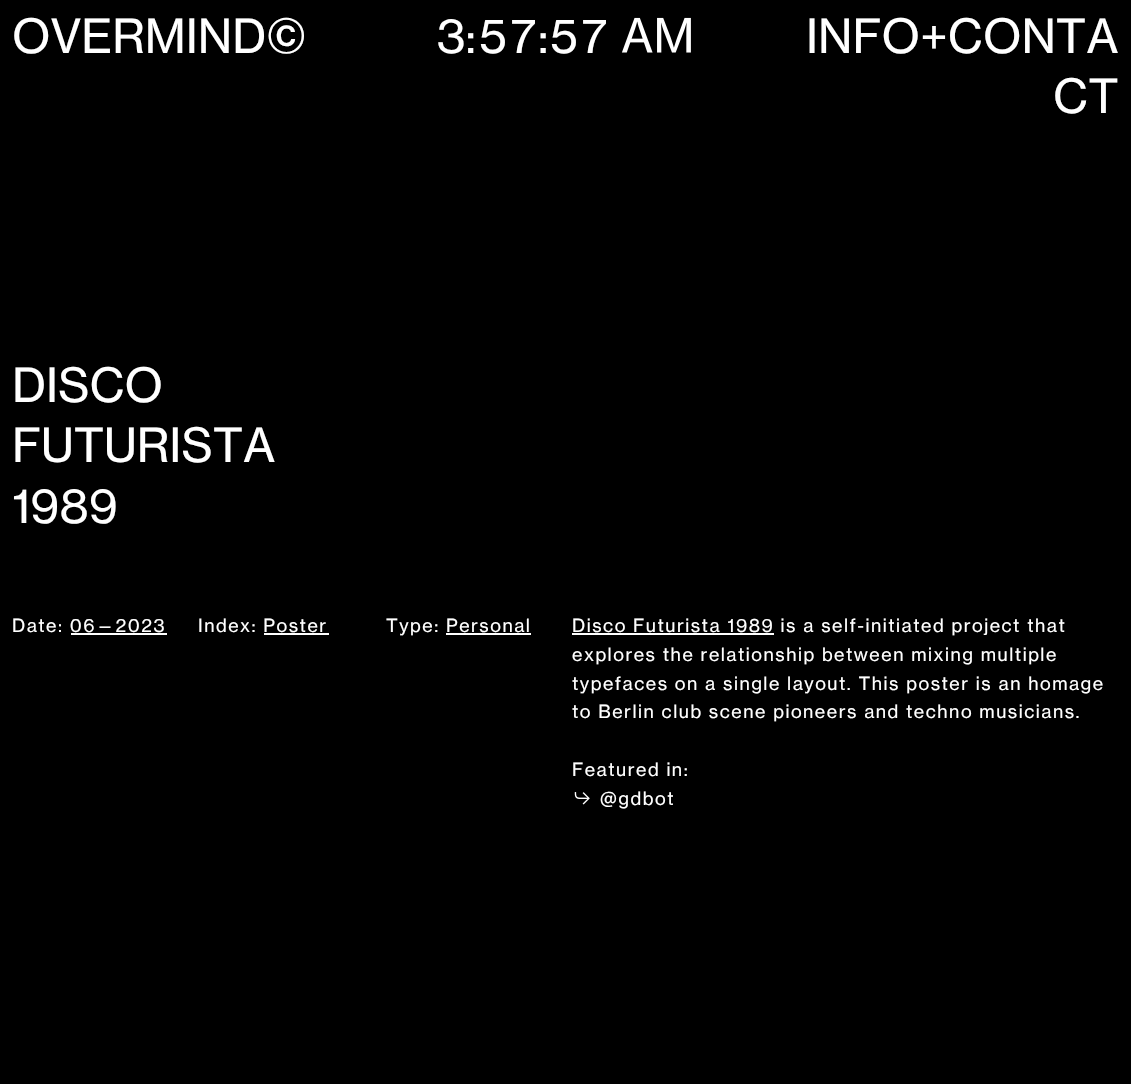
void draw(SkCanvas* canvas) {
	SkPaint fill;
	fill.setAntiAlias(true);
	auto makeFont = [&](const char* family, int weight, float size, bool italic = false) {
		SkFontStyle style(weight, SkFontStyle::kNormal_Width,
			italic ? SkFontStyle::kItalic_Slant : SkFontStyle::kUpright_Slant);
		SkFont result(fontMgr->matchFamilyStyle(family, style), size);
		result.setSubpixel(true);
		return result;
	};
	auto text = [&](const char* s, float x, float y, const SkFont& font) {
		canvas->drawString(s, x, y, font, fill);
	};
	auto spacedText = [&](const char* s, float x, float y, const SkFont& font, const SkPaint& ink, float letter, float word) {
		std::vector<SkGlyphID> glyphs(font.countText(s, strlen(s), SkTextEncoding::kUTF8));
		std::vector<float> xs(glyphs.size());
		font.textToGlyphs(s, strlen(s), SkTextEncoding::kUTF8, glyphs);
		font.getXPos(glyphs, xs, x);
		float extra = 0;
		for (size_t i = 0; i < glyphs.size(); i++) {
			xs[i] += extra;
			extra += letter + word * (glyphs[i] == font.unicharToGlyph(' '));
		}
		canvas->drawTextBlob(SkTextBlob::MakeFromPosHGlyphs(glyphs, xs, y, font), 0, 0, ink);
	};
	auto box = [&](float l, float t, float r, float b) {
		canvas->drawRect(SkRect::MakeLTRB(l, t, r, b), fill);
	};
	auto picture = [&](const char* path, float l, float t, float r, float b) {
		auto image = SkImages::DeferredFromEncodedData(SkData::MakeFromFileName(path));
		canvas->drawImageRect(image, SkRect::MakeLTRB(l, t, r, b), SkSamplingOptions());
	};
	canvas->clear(0xFF000000);
	picture("image0.png", 621, 17, 691, 53);
	fill.setColor(0xFFFFFFFF);
	box(71, 633, 167, 635);
	box(264, 633, 329, 635);
	box(446, 633, 531, 635);
	box(572, 633, 774, 635);
	picture("image1.png", 574, 792, 590, 805);
	auto font1 = makeFont("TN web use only", 400, 46.5f);
	text("OVERMIND©", 12, 53, font1);
	text("3:", 437, 53, font1);
	auto font2 = makeFont("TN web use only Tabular", 400, 46.5f);
	text("57", 478, 53, font2);
	text(":", 538, 53, font1);
	text("57", 549, 53, font2);
	text("INFO+CONTA", 806, 53, font1);
	text("CT", 1053, 113, font1);
	text("DISCO", 12, 402, font1);
	text("FUTURISTA", 12, 462, font1);
	text("1989", 12, 523, font1);
	auto font3 = makeFont("TN web use only", 400, 18);
	spacedText("Date: 06—2023", 12, 632, font3, fill, 1.5f, 0);
	spacedText("Index: Poster", 198, 632, font3, fill, 1.5f, 0);
	spacedText("Type: Personal", 386, 632, font3, fill, 1.5f, 0);
	spacedText("Disco Futurista 1989 is a self-initiated project that", 572, 632, font3, fill, 1.5f, 0);
	spacedText("explores the relationship between mixing multiple", 572, 661, font3, fill, 1.5f, 0);
	spacedText("typefaces on a single layout. This poster is an homage", 572, 690, font3, fill, 1.5f, 0);
	spacedText("to Berlin club scene pioneers and techno musicians.", 572, 718, font3, fill, 1.5f, 0);
	spacedText("Featured in:", 572, 776, font3, fill, 1.5f, 0);
	spacedText("@gdbot", 600, 805, font3, fill, 1.5f, 0);
}
